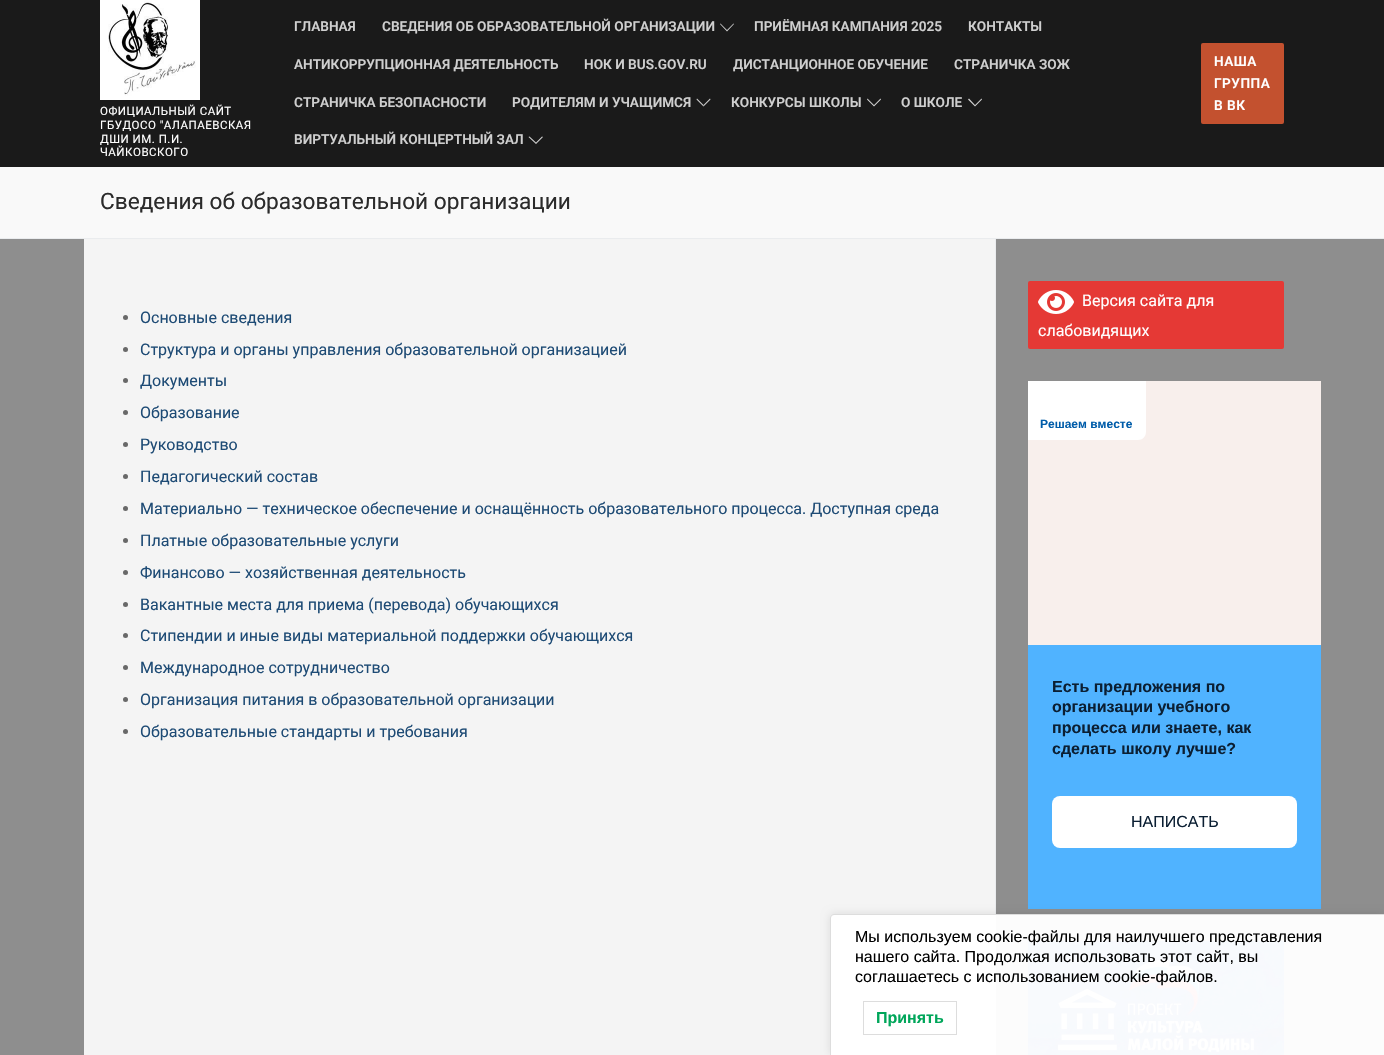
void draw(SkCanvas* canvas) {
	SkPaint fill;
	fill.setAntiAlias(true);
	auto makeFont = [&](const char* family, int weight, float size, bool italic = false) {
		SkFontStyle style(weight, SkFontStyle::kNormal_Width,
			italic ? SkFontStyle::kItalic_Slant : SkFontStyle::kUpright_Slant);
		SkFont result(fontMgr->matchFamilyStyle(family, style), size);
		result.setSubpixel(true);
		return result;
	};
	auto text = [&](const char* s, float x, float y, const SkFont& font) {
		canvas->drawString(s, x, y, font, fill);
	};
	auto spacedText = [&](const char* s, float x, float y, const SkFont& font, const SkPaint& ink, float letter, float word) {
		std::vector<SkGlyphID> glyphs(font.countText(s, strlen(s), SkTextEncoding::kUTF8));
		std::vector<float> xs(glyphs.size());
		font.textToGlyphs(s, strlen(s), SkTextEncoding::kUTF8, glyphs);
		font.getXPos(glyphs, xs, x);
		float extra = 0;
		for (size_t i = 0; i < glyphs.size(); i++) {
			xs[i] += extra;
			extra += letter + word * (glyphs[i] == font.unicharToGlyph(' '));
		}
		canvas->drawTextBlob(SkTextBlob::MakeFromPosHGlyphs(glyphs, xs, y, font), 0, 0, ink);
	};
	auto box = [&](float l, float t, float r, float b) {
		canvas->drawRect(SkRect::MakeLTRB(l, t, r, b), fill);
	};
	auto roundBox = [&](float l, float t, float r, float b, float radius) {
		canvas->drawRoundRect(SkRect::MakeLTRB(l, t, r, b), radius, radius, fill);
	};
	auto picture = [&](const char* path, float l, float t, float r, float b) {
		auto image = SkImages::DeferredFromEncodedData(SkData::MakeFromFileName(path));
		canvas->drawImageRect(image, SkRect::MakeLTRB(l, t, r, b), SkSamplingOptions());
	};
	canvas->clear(0xFFF9F9F9);
	fill.setColor(0xFF1A1A1A);
	box(0, 0, 1384, 167);
	picture("image0.png", 100, 0, 200, 100);
	fill.setColor(0xFFCFCFCF);
	canvas->drawPath(SkPathBuilder().moveTo(727, 31.5f).lineTo(720, 24).lineTo(720.5f, 23.5f).lineTo(727, 30).close().moveTo(734, 24).lineTo(727, 31.5f).lineTo(727, 30).lineTo(733.5f, 23.5f).close().detach(), fill);
	canvas->drawPath(SkPathBuilder().moveTo(703.5f, 106.5f).lineTo(696.5f, 99.5f).lineTo(697, 98.5f).lineTo(703.5f, 105).close().detach(), fill);
	fill.setColor(0xC9FFFFFF);
	canvas->drawPath(SkPathBuilder().moveTo(710.5f, 99.5f).lineTo(703.5f, 106.5f).lineTo(703.5f, 105).lineTo(710, 98.5f).close().detach(), fill);
	fill.setColor(0xFFCFCFCF);
	canvas->drawPath(SkPathBuilder().moveTo(874, 106.5f).lineTo(867, 99.5f).lineTo(867.5f, 98.5f).lineTo(874, 105).close().moveTo(881, 99.5f).lineTo(874, 106.5f).lineTo(874, 105).lineTo(880.5f, 98.5f).close().detach(), fill);
	canvas->drawPath(SkPathBuilder().moveTo(975, 106.5f).lineTo(968, 99.5f).lineTo(969, 98.5f).lineTo(975, 105).close().moveTo(982, 99.5f).lineTo(975, 106.5f).lineTo(975, 105).lineTo(981.5f, 98.5f).close().detach(), fill);
	canvas->drawPath(SkPathBuilder().moveTo(536, 144).lineTo(528.5f, 137).lineTo(529.5f, 136.5f).lineTo(536, 142.5f).close().moveTo(543, 137).lineTo(536, 144).lineTo(536, 142.5f).lineTo(542, 136.5f).close().detach(), fill);
	fill.setColor(0xFFC3512F);
	roundBox(1201, 43, 1284, 124, 2);
	fill.setColor(0xFFEAECEE);
	box(0, 238, 1384, 239);
	fill.setColor(0xFF8E8E8E);
	box(0, 239, 1384, 1055);
	fill.setColor(0xFFF4F4F4);
	box(84, 239, 995, 1055);
	fill.setColor(0xFFEAECEE);
	box(995, 239, 996, 1055);
	fill.setColor(0xFF686868);
	canvas->drawCircle(125.5f, 317.5f, 2.5f, fill);
	canvas->drawCircle(125.5f, 349.5f, 2.5f, fill);
	canvas->drawCircle(125.5f, 380.5f, 2.5f, fill);
	canvas->drawCircle(125.5f, 412.5f, 2.5f, fill);
	canvas->drawCircle(125.5f, 444.5f, 2.5f, fill);
	canvas->drawCircle(125.5f, 476.5f, 2.5f, fill);
	canvas->drawCircle(125.5f, 508.5f, 2.5f, fill);
	canvas->drawCircle(125.5f, 540.5f, 2.5f, fill);
	canvas->drawCircle(125.5f, 572.5f, 2.5f, fill);
	canvas->drawCircle(125.5f, 604.5f, 2.5f, fill);
	canvas->drawCircle(125.5f, 635.5f, 2.5f, fill);
	canvas->drawCircle(125.5f, 667.5f, 2.5f, fill);
	canvas->drawCircle(125.5f, 699.5f, 2.5f, fill);
	canvas->drawCircle(125.5f, 731.5f, 2.5f, fill);
	fill.setColor(0xFFE53935);
	roundBox(1028, 281, 1284, 349, 2);
	picture("image1.png", 1038, 290, 1074, 314);
	fill.setColor(0xFF50B3FF);
	box(1028, 645, 1321, 909);
	fill.setColor(0xFFF8EFEC);
	box(1028, 381, 1321, 645);
	fill.setColor(0xFFFFFFFF);
	canvas->drawPath(SkPathBuilder().moveTo(1028, 381).lineTo(1146, 381).lineTo(1146, 432).cubicTo(1146, 436.5f, 1142.5f, 440, 1138, 440).lineTo(1028, 440).close().detach(), fill);
	roundBox(1052, 796, 1297, 848, 8);
	picture("image2.png", 1028, 941, 1284, 1055);
	canvas->save();
	canvas->clipPath(SkPathBuilder(SkPathFillType::kEvenOdd).moveTo(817, 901).lineTo(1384, 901).lineTo(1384, 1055).lineTo(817, 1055).close().moveTo(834, 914).lineTo(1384, 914).lineTo(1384, 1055).lineTo(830, 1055).lineTo(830, 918).cubicTo(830, 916, 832, 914, 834, 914).close().detach(), true);
	fill.setColor(0x1A000000);
	fill.setMaskFilter(SkMaskFilter::MakeBlur(kNormal_SkBlurStyle, 4));
	canvas->drawRoundRect(SkRect::MakeLTRB(830, 914, 1384, 1055), 4, 4, fill);
	fill.setMaskFilter(nullptr);
	canvas->restore();
	fill.setColor(0xF7FFFFFF);
	canvas->drawPath(SkPathBuilder().moveTo(834, 915).lineTo(1384, 915).lineTo(1384, 1055).lineTo(831, 1055).lineTo(831, 918).cubicTo(831, 916.5f, 832.5f, 915, 834, 915).close().detach(), fill);
	fill.setColor(0xFFDDDDDD);
	canvas->drawPath(SkPathBuilder(SkPathFillType::kEvenOdd).moveTo(834, 914).lineTo(1384, 914).lineTo(1384, 1055).lineTo(830, 1055).lineTo(830, 918).cubicTo(830, 916, 832, 914, 834, 914).close().moveTo(834, 915).lineTo(1384, 915).lineTo(1384, 1055).lineTo(831, 1055).lineTo(831, 918).cubicTo(831, 916, 832, 915, 834, 915).close().detach(), fill);
	fill.setStyle(SkPaint::kStroke_Style);
	fill.setStrokeWidth(1);
	canvas->drawRect(SkRect::MakeLTRB(863.5f, 1001.5f, 956.5f, 1034.5f), fill);
	auto font1 = makeFont("Roboto", 400, 11.5f);
	fill.setStyle(SkPaint::kFill_Style);
	fill.setColor(0xFFFFFFFF);
	spacedText("ОФИЦИАЛЬНЫЙ САЙТ", 100, 115, font1, fill, 0.5f, 0);
	spacedText("ГБУДОСО \"АЛАПАЕВСКАЯ", 100, 129, font1, fill, 0.5f, 0);
	spacedText("ДШИ ИМ. П.И.", 100, 143, font1, fill, 0.5f, 0);
	spacedText("ЧАЙКОВСКОГО", 100, 156, font1, fill, 0.5f, 0);
	auto font2 = makeFont("Roboto", 600, 13.6f);
	fill.setColor(0xFFCFCFCF);
	text("ГЛАВНАЯ", 294, 31, font2);
	text("СВЕДЕНИЯ ОБ ОБРАЗОВАТЕЛЬНОЙ ОРГАНИЗАЦИИ", 382, 31, font2);
	text("ПРИЁМНАЯ КАМПАНИЯ 2025", 754, 31, font2);
	text("КОНТАКТЫ", 968, 31, font2);
	text("АНТИКОРРУПЦИОННАЯ ДЕЯТЕЛЬНОСТЬ", 294, 69, font2);
	text("НОК И BUS.GOV.RU", 584, 69, font2);
	text("ДИСТАНЦИОННОЕ ОБУЧЕНИЕ", 733, 69, font2);
	text("СТРАНИЧКА ЗОЖ", 954, 69, font2);
	text("СТРАНИЧКА БЕЗОПАСНОСТИ", 294, 107, font2);
	text("РОДИТЕЛЯМ И УЧАЩИМСЯ", 512, 107, font2);
	text("КОНКУРСЫ ШКОЛЫ", 731, 107, font2);
	text("О ШКОЛЕ", 901, 107, font2);
	text("ВИРТУАЛЬНЫЙ КОНЦЕРТНЫЙ ЗАЛ", 294, 144, font2);
	fill.setColor(0xFFFFFFFF);
	spacedText("НАША", 1214, 66, font2, fill, 0.5f, 0);
	spacedText("ГРУППА", 1214, 88, font2, fill, 0.5f, 0);
	spacedText("В ВК", 1214, 110, font2, fill, 0.5f, 0);
	auto font3 = makeFont("Roboto", 400, 22.65f);
	fill.setColor(0xFF2B2B2B);
	text("Сведения об образовательной организации", 100, 209, font3);
	auto font4 = makeFont("Roboto", 400, 16);
	fill.setColor(0xFF1E4B75);
	text("Основные сведения", 140, 323, font4);
	text("Структура и органы управления образовательной организацией", 140, 355, font4);
	text("Документы", 140, 386, font4);
	text("Образование", 140, 418, font4);
	text("Руководство", 140, 450, font4);
	text("Педагогический состав", 140, 482, font4);
	text("Материально — техническое обеспечение и оснащённость образовательного процесса. Доступная среда", 140, 514, font4);
	text("Платные образовательные услуги", 140, 546, font4);
	text("Финансово — хозяйственная деятельность", 140, 578, font4);
	text("Вакантные места для приема (перевода) обучающихся", 140, 610, font4);
	text("Стипендии и иные виды материальной поддержки обучающихся", 140, 641, font4);
	text("Международное сотрудничество", 140, 673, font4);
	text("Организация питания в образовательной организации", 140, 705, font4);
	text("Образовательные стандарты и требования", 140, 737, font4);
	fill.setColor(0xFFFFFFFF);
	text("Версия сайта для", 1082, 306, font4);
	text("слабовидящих", 1038, 336, font4);
	auto font5 = makeFont("Liberation Sans", 700, 12);
	fill.setColor(0xFF005CA9);
	text("Решаем вместе", 1040, 428, font5);
	auto font6 = makeFont("Liberation Sans", 700, 16);
	fill.setColor(0xFF0B1F33);
	text("Есть предложения по", 1052, 692, font6);
	text("организации учебного", 1052, 712, font6);
	text("процесса или знаете, как", 1052, 733, font6);
	text("сделать школу лучше?", 1052, 754, font6);
	auto font7 = makeFont("Liberation Sans", 400, 16);
	text("НАПИСАТЬ", 1131, 827, font7);
	fill.setColor(0xFF000000);
	text("Мы используем cookie-файлы для наилучшего представления", 855, 942, font7);
	text("нашего сайта. Продолжая использовать этот сайт, вы", 855, 962, font7);
	text("соглашаетесь с использованием cookie-файлов.", 855, 982, font7);
	fill.setColor(0xFF00A65A);
	text("Принять", 876, 1023, font6);
}
